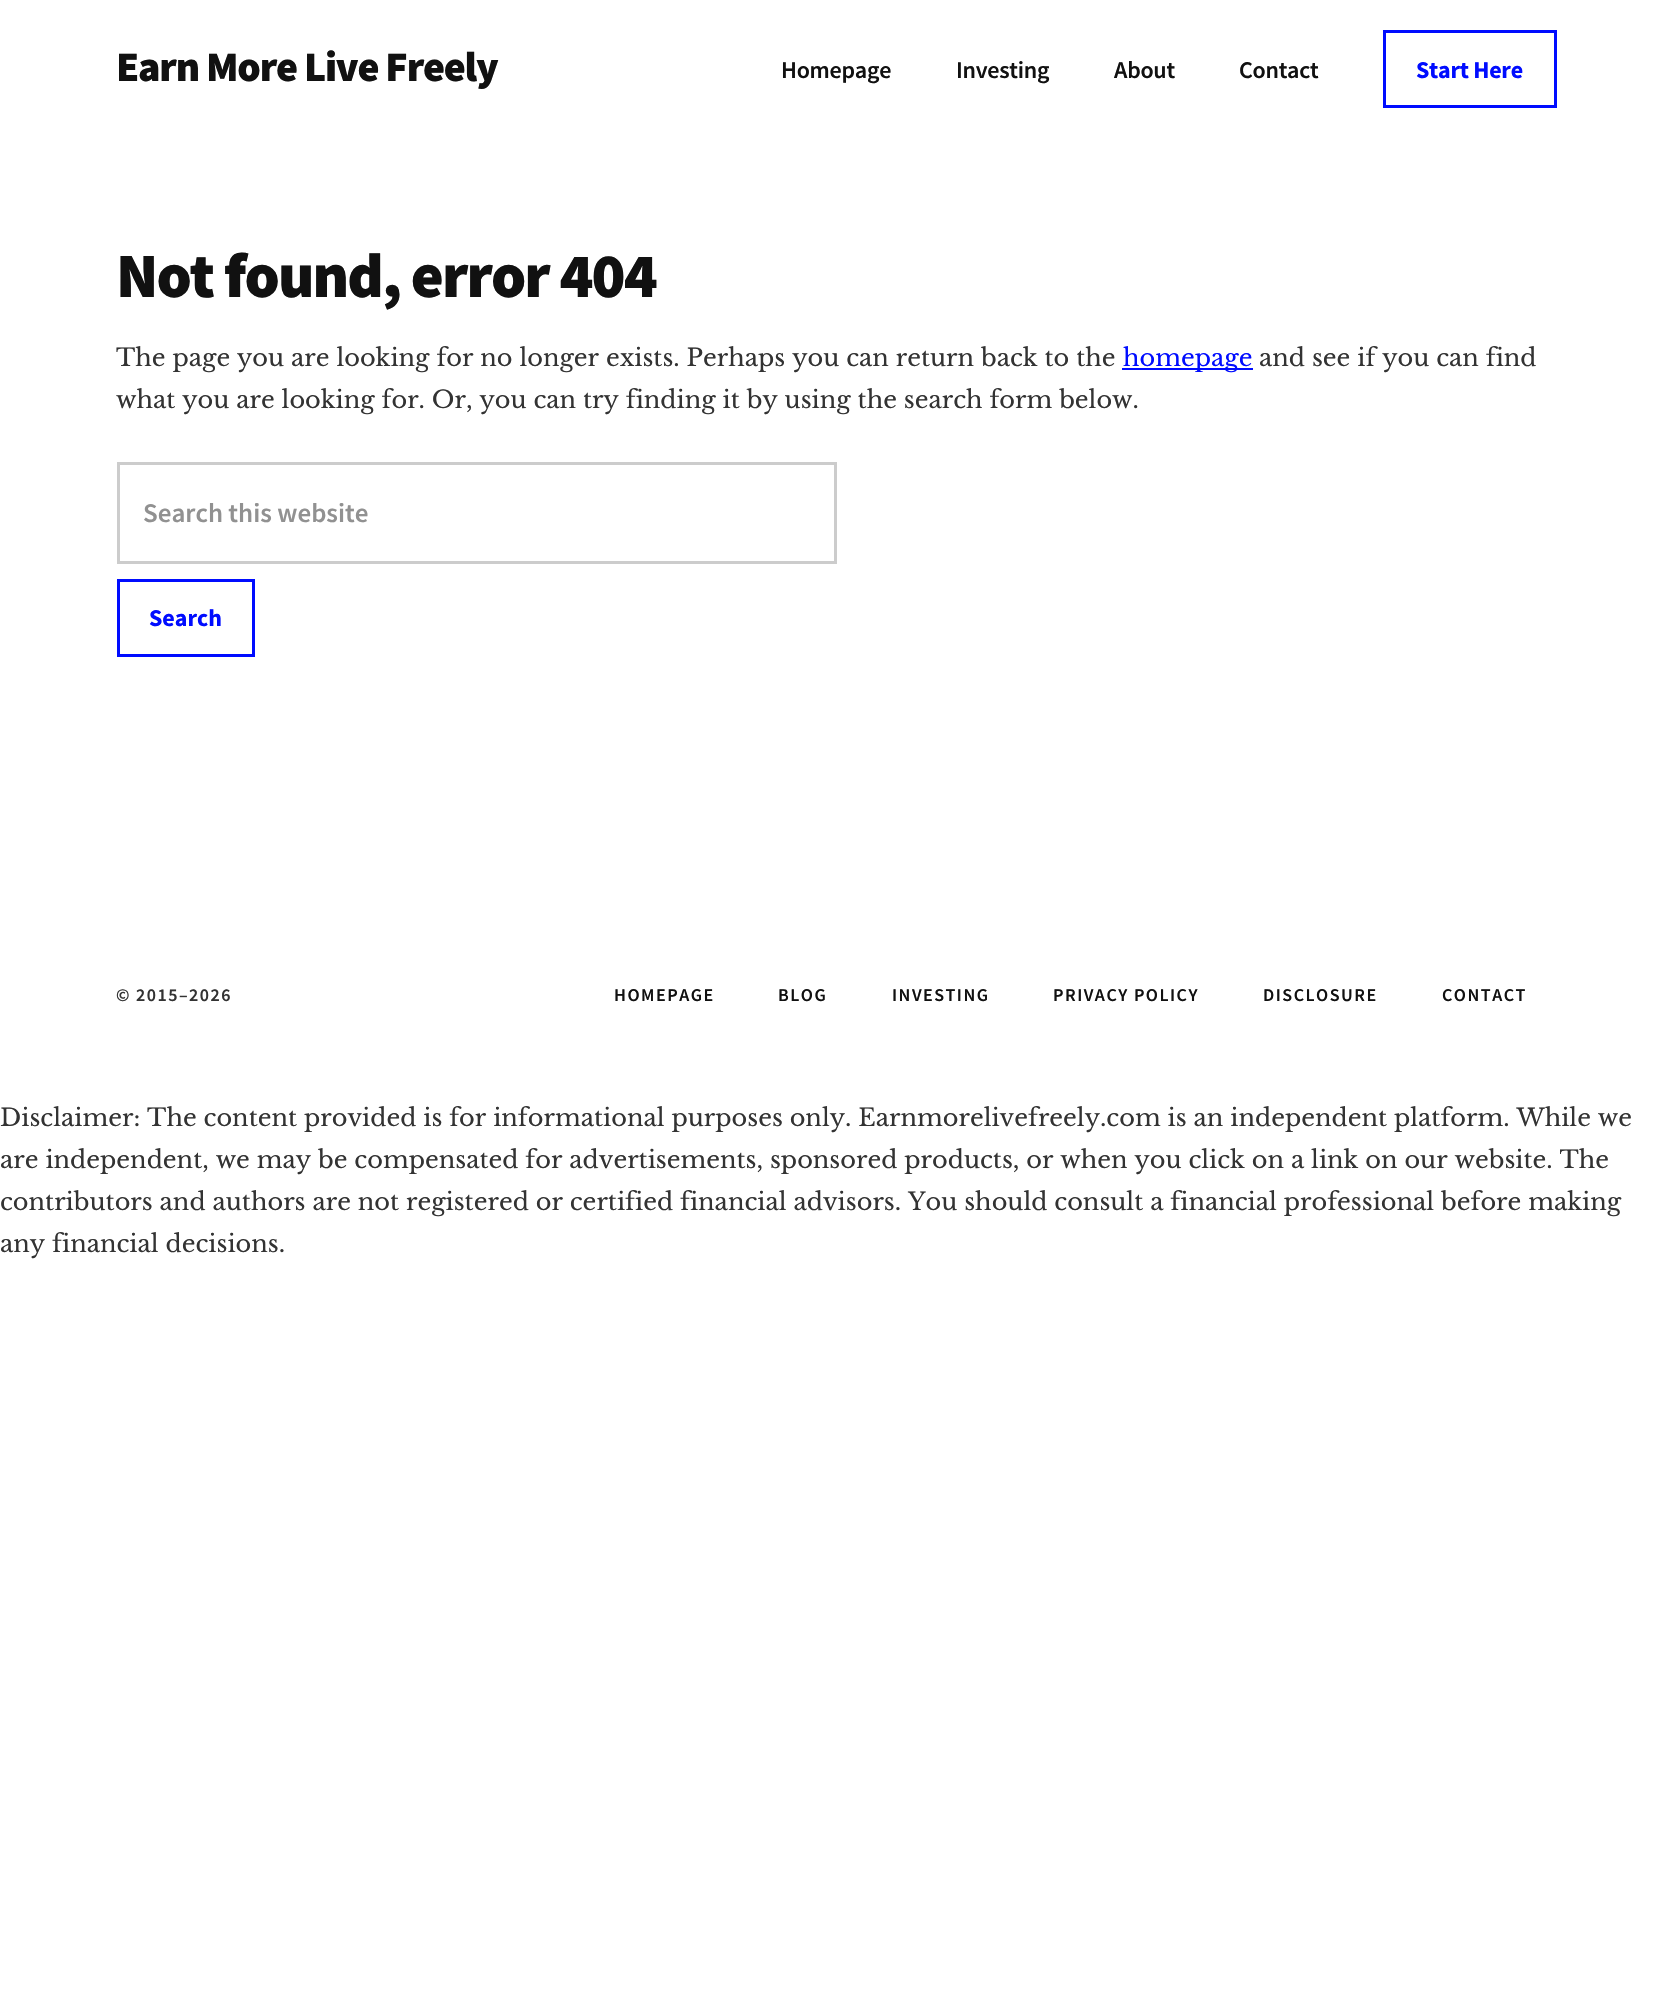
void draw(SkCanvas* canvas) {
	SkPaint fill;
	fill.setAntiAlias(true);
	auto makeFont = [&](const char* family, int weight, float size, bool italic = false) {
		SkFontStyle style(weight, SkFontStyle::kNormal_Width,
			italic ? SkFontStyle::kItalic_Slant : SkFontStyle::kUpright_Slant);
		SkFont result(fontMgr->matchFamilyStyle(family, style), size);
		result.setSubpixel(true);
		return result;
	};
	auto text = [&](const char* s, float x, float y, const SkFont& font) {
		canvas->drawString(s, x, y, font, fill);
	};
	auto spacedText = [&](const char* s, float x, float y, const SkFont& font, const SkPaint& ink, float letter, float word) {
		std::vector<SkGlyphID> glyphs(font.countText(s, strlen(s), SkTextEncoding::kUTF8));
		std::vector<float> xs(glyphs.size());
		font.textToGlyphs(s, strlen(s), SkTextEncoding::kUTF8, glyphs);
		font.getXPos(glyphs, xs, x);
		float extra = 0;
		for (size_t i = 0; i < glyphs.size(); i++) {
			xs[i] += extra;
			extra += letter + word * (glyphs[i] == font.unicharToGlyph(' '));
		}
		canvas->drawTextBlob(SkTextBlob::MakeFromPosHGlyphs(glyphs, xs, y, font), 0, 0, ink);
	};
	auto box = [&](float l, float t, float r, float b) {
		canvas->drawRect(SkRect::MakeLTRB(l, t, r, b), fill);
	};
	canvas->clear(0xFFFFFFFF);
	fill.setStyle(SkPaint::kStroke_Style);
	fill.setStrokeWidth(3);
	fill.setColor(0xFF000CFF);
	canvas->drawRect(SkRect::MakeLTRB(1384.5f, 31.5f, 1555.5f, 106.5f), fill);
	fill.setStyle(SkPaint::kFill_Style);
	box(1122, 368, 1253, 370);
	fill.setStyle(SkPaint::kStroke_Style);
	fill.setColor(0xFFCCCCCC);
	canvas->drawRect(SkRect::MakeLTRB(118.5f, 463.5f, 835.5f, 562.5f), fill);
	fill.setColor(0xFF000CFF);
	canvas->drawRect(SkRect::MakeLTRB(118.5f, 580.5f, 253.5f, 655.5f), fill);
	auto font1 = makeFont("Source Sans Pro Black", 900, 42);
	fill.setStyle(SkPaint::kFill_Style);
	fill.setColor(0xFF111111);
	spacedText("Earn More Live Freely", 116, 81, font1, fill, -1.25f, 0);
	auto font2 = makeFont("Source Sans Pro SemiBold", 600, 24);
	spacedText("Homepage", 781, 78, font2, fill, -0.25f, 0);
	spacedText("Investing", 956, 78, font2, fill, -0.25f, 0);
	spacedText("About", 1114, 78, font2, fill, -0.25f, 0);
	spacedText("Contact", 1239, 78, font2, fill, -0.25f, 0);
	auto font3 = makeFont("Source Sans Pro", 700, 24);
	fill.setColor(0xFF000CFF);
	spacedText("Start Here", 1416, 78, font3, fill, -0.25f, 0);
	auto font4 = makeFont("Source Sans Pro Black", 900, 63);
	fill.setColor(0xFF111111);
	spacedText("Not found, error 404", 116, 297, font4, fill, -1.9f, 0);
	auto font5 = makeFont("Libre Baskerville", 400, 24);
	fill.setColor(0xFF333333);
	text("The page you are looking for no longer exists. Perhaps you can return back to the", 116, 366, font5);
	fill.setColor(0xFF000CFF);
	text("homepage", 1123, 366, font5);
	fill.setColor(0xFF333333);
	text("and see if you can find", 1259, 366, font5);
	text("what you are looking for. Or, you can try finding it by using the search form below.", 116, 408, font5);
	auto font6 = makeFont("Source Sans Pro SemiBold", 600, 27);
	fill.setColor(0xFF919191);
	text("Search this website", 143, 522, font6);
	fill.setColor(0xFF000CFF);
	text("Search", 149, 626, font3);
	auto font7 = makeFont("Source Sans Pro SemiBold", 600, 18);
	fill.setColor(0xFF333333);
	spacedText("© 2015–2026", 116, 1001, font7, fill, 1.5f, 0);
	fill.setColor(0xFF111111);
	spacedText("HOMEPAGE", 614, 1001, font7, fill, 1.5f, 0);
	spacedText("BLOG", 778, 1001, font7, fill, 1.5f, 0);
	spacedText("INVESTING", 892, 1001, font7, fill, 1.5f, 0);
	spacedText("PRIVACY POLICY", 1053, 1001, font7, fill, 1.5f, 0);
	spacedText("DISCLOSURE", 1263, 1001, font7, fill, 1.5f, 0);
	spacedText("CONTACT", 1442, 1001, font7, fill, 1.5f, 0);
	fill.setColor(0xFF333333);
	text("Disclaimer: The content provided is for informational purposes only. Earnmorelivefreely.com is an independent platform. While we", 0, 1126, font5);
	text("are independent, we may be compensated for advertisements, sponsored products, or when you click on a link on our website. The", 0, 1168, font5);
	text("contributors and authors are not registered or certified financial advisors. You should consult a financial professional before making", 0, 1210, font5);
	text("any financial decisions.", 0, 1252, font5);
}
